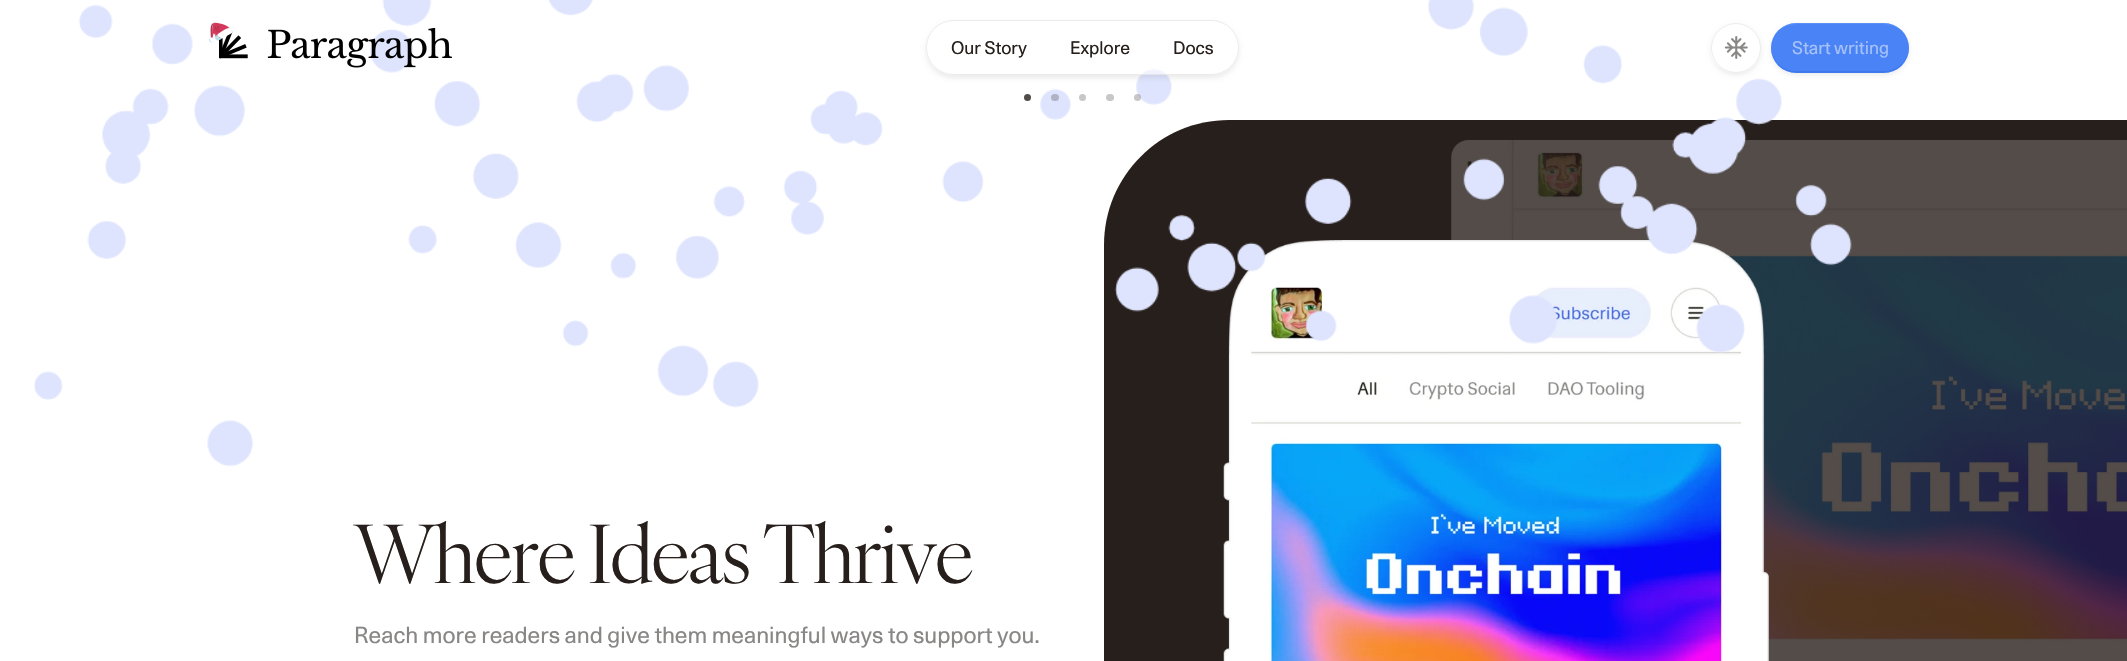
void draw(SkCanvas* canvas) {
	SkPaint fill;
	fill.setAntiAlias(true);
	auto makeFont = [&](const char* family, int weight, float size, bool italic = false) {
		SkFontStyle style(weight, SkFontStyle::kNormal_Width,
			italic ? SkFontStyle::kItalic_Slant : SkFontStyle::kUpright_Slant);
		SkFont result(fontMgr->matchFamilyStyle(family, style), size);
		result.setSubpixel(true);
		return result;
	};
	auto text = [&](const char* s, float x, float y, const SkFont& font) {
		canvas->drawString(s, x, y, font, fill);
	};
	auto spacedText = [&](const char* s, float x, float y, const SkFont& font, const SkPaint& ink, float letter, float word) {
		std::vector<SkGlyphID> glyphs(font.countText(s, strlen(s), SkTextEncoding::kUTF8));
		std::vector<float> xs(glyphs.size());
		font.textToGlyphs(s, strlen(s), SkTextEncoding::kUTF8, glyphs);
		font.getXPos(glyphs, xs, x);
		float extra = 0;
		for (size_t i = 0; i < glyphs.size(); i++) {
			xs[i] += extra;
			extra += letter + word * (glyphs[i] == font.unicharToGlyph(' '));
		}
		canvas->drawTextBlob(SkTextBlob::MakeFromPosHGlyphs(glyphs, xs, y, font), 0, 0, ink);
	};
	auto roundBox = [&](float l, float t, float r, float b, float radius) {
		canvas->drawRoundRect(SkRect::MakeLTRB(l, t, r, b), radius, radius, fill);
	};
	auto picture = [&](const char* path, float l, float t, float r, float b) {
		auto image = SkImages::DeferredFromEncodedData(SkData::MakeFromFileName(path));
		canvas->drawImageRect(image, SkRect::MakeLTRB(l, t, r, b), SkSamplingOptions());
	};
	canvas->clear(0xFFFFFFFF);
	fill.setColor(0xFF271F1B);
	canvas->drawPath(SkPathBuilder().moveTo(1229, 120).lineTo(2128, 120).lineTo(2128, 661).lineTo(1104, 661).lineTo(1104, 245).cubicTo(1104, 176, 1160, 120, 1229, 120).close().detach(), fill);
	picture("image4.png", 1451, 140, 2127, 661);
	picture("image5.png", 1223, 240, 1769, 661);
	picture("image0.png", 34, 0, 1852, 467);
	picture("image2.png", 219, 28, 452, 68);
	picture("image1.png", 209, 22, 233, 43);
	canvas->save();
	canvas->clipPath(SkPathBuilder(SkPathFillType::kEvenOdd).moveTo(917, 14).lineTo(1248, 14).lineTo(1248, 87).lineTo(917, 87).close().moveTo(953.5f, 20).lineTo(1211.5f, 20).cubicTo(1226.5f, 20, 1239, 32.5f, 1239, 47.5f).cubicTo(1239, 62.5f, 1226.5f, 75, 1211.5f, 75).lineTo(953.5f, 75).cubicTo(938.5f, 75, 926, 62.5f, 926, 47.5f).cubicTo(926, 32.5f, 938.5f, 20, 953.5f, 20).close().detach(), true);
	fill.setColor(0x14000000);
	fill.setMaskFilter(SkMaskFilter::MakeBlur(kNormal_SkBlurStyle, 2.5f));
	canvas->drawRoundRect(SkRect::MakeLTRB(926, 23, 1239, 78), 27.5f, 27.5f, fill);
	fill.setMaskFilter(nullptr);
	canvas->restore();
	fill.setColor(0x8CFFFFFF);
	roundBox(926, 20, 1239, 75, 27.5f);
	fill.setColor(0xCCFFFFFF);
	canvas->drawPath(SkPathBuilder().moveTo(955, 21).cubicTo(929, 21, 918, 57, 940, 71).cubicTo(931, 66, 926, 58, 926, 48).cubicTo(926, 32, 938, 20, 954, 20).lineTo(1212, 20).cubicTo(1221, 20, 1229, 25, 1234, 31).cubicTo(1229, 25, 1221, 21, 1212, 21).close().detach(), fill);
	fill.setStyle(SkPaint::kStroke_Style);
	fill.setStrokeWidth(1);
	fill.setColor(0x80DBD5D2);
	canvas->drawRoundRect(SkRect::MakeLTRB(926.5f, 20.5f, 1238.5f, 74.5f), 27, 27, fill);
	fill.setStyle(SkPaint::kFill_Style);
	fill.setColor(0xFF524C49);
	canvas->drawCircle(1027.5f, 97.5f, 3.5f, fill);
	fill.setColor(0xFFB0B3C5);
	roundBox(1051, 94, 1059, 101, 3.5f);
	fill.setColor(0xFFC9C7C6);
	canvas->drawCircle(1082.5f, 97.5f, 3.5f, fill);
	roundBox(1106, 94, 1114, 101, 3.5f);
	fill.setColor(0x40271F1B);
	canvas->drawCircle(1137.5f, 97.5f, 3.5f, fill);
	canvas->save();
	canvas->clipPath(SkPathBuilder(SkPathFillType::kEvenOdd).moveTo(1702, 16).lineTo(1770, 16).lineTo(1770, 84).lineTo(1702, 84).close().moveTo(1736, 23).cubicTo(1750, 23, 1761, 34, 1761, 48).cubicTo(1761, 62, 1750, 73, 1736, 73).cubicTo(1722, 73, 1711, 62, 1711, 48).cubicTo(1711, 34, 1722, 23, 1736, 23).close().detach(), true);
	fill.setColor(0x14000000);
	fill.setMaskFilter(SkMaskFilter::MakeBlur(kNormal_SkBlurStyle, 2.5f));
	canvas->drawRoundRect(SkRect::MakeLTRB(1711, 25, 1761, 75), 25, 25, fill);
	fill.setMaskFilter(nullptr);
	canvas->restore();
	fill.setColor(0x8CFFFFFF);
	canvas->drawCircle(1736, 48, 25, fill);
	fill.setColor(0xCCFFFFFF);
	canvas->drawPath(SkPathBuilder().moveTo(1738, 24).cubicTo(1712, 24, 1706, 56, 1722, 69).cubicTo(1696, 52, 1719, 12, 1747, 25).cubicTo(1744, 25, 1741, 24, 1738, 24).close().detach(), fill);
	fill.setStyle(SkPaint::kStroke_Style);
	fill.setColor(0x80DBD5D2);
	canvas->drawCircle(1736, 48, 24.5f, fill);
	picture("image3.png", 1724, 36, 1748, 59);
	canvas->save();
	canvas->clipPath(SkPathBuilder(SkPathFillType::kEvenOdd).moveTo(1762, 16).lineTo(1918, 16).lineTo(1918, 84).lineTo(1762, 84).close().moveTo(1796, 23).lineTo(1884, 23).cubicTo(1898, 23, 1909, 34, 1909, 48).cubicTo(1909, 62, 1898, 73, 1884, 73).lineTo(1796, 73).cubicTo(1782, 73, 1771, 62, 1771, 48).cubicTo(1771, 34, 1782, 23, 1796, 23).close().detach(), true);
	fill.setStyle(SkPaint::kFill_Style);
	fill.setColor(0x14000000);
	fill.setMaskFilter(SkMaskFilter::MakeBlur(kNormal_SkBlurStyle, 2.5f));
	canvas->drawRoundRect(SkRect::MakeLTRB(1771, 25, 1909, 75), 25, 25, fill);
	fill.setMaskFilter(nullptr);
	canvas->restore();
	fill.setColor(0xBF0D59F2);
	roundBox(1771, 23, 1909, 73, 25);
	fill.setColor(0x330A47C2);
	canvas->drawPath(SkPathBuilder().moveTo(1771, 47).cubicTo(1771, 59, 1779, 70, 1791, 72).cubicTo(1796, 73, 1809, 73, 1811, 73).lineTo(1869, 73).cubicTo(1871, 73, 1884, 73, 1889, 72).cubicTo(1901, 70, 1909, 59, 1909, 47).cubicTo(1908, 61, 1898, 71, 1884, 71).lineTo(1796, 71).cubicTo(1782, 71, 1772, 61, 1771, 47).close().detach(), fill);
	fill.setColor(0x4DCFDEFC);
	canvas->drawPath(SkPathBuilder().moveTo(1796, 24).cubicTo(1782, 24, 1771, 35, 1771, 48).cubicTo(1771, 34, 1782, 23, 1796, 23).lineTo(1884, 23).cubicTo(1898, 23, 1909, 34, 1909, 48).cubicTo(1909, 35, 1898, 24, 1884, 24).close().detach(), fill);
	fill.setStyle(SkPaint::kStroke_Style);
	fill.setColor(0x663D7AF5);
	canvas->drawRoundRect(SkRect::MakeLTRB(1771.5f, 23.5f, 1908.5f, 72.5f), 24.5f, 24.5f, fill);
	auto font1 = makeFont("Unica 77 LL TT", 400, 17.5f);
	fill.setStyle(SkPaint::kFill_Style);
	fill.setColor(0xFF271F1B);
	text("Our Story", 951, 54, font1);
	text("Explore", 1070, 54, font1);
	text("Docs", 1173, 54, font1);
	fill.setColor(0xFFA4C1FA);
	text("Start writing", 1792, 54, font1);
	auto font2 = makeFont("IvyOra", 400, 80);
	fill.setColor(0xFF271F1B);
	spacedText("Where Ideas Thrive", 354, 583, font2, fill, -1.75f, 0);
	auto font3 = makeFont("Unica 77 LL TT", 400, 22.5f);
	fill.setColor(0xFF888786);
	text("Reach more readers and give them meaningful ways to support you.", 354, 643, font3);
}
